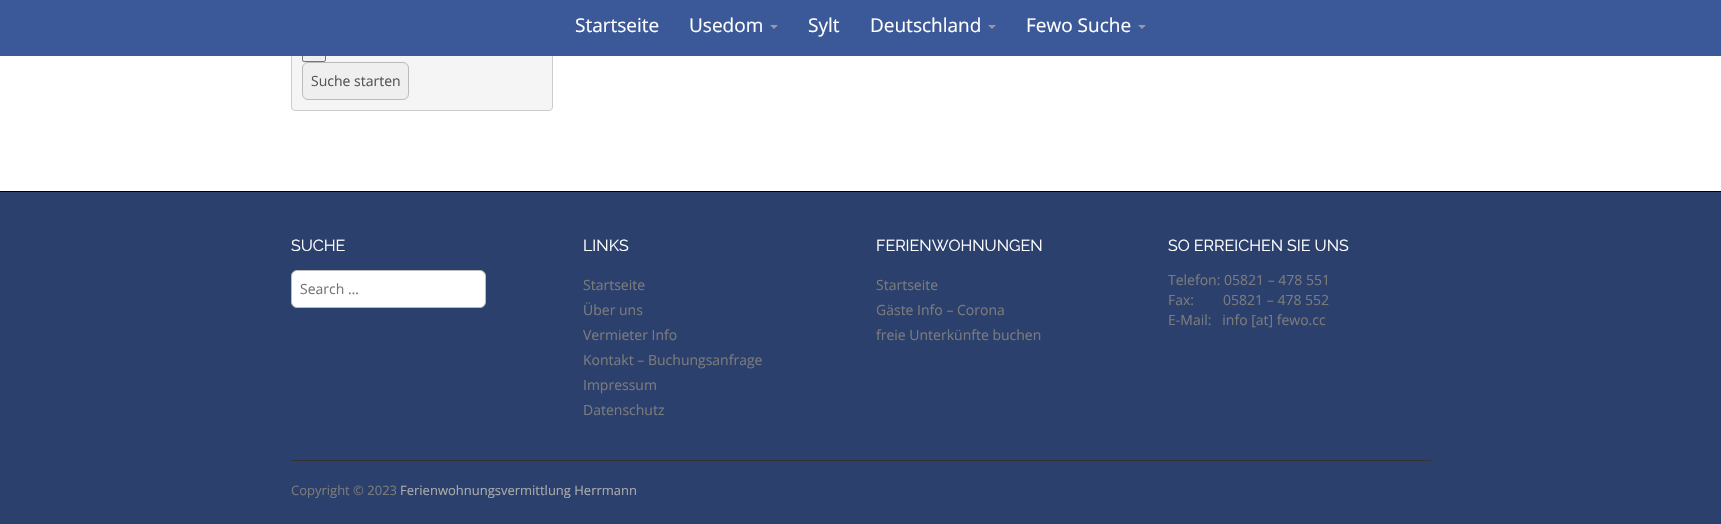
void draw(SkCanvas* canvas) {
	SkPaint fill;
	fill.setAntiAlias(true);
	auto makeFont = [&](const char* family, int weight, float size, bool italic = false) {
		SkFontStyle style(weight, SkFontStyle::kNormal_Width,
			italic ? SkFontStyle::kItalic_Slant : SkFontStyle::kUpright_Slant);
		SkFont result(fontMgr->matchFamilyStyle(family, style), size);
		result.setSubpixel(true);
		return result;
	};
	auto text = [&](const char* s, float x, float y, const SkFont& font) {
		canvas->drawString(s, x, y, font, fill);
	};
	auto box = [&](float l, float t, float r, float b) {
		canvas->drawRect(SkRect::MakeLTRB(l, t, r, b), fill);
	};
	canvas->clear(0xFFFFFFFF);
	fill.setColor(0xFFF5F5F5);
	canvas->drawRoundRect(SkRect::MakeLTRB(291.5f, -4.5f, 552.5f, 110.5f), 3.5f, 3.5f, fill);
	fill.setStyle(SkPaint::kStroke_Style);
	fill.setStrokeWidth(1);
	fill.setColor(0xFFCCCCCC);
	canvas->drawRoundRect(SkRect::MakeLTRB(291.5f, -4.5f, 552.5f, 110.5f), 3.5f, 3.5f, fill);
	fill.setStyle(SkPaint::kFill_Style);
	fill.setColor(0xFFEFEFEF);
	canvas->drawRoundRect(SkRect::MakeLTRB(302.5f, 35.5f, 325.5f, 61.5f), 1.5f, 1.5f, fill);
	fill.setStyle(SkPaint::kStroke_Style);
	fill.setColor(0xFF767676);
	canvas->drawRoundRect(SkRect::MakeLTRB(302.5f, 35.5f, 325.5f, 61.5f), 1.5f, 1.5f, fill);
	fill.setStyle(SkPaint::kFill_Style);
	fill.setColor(0xFF3B5999);
	box(0, 0, 1721, 56);
	fill.setColor(0xFF999999);
	canvas->drawPath(SkPathBuilder().moveTo(770, 25).lineTo(778, 25).lineTo(774, 29).close().detach(), fill);
	canvas->drawPath(SkPathBuilder().moveTo(988, 25).lineTo(996, 25).lineTo(992, 29).close().detach(), fill);
	canvas->drawPath(SkPathBuilder().moveTo(1138, 25).lineTo(1146, 25).lineTo(1142, 29).close().detach(), fill);
	fill.setColor(0xFFEFEFEF);
	canvas->drawRoundRect(SkRect::MakeLTRB(302.5f, 62.5f, 408.5f, 99.5f), 5.5f, 5.5f, fill);
	fill.setStyle(SkPaint::kStroke_Style);
	fill.setColor(0xFFBBBBBB);
	canvas->drawRoundRect(SkRect::MakeLTRB(302.5f, 62.5f, 408.5f, 99.5f), 5.5f, 5.5f, fill);
	fill.setStyle(SkPaint::kFill_Style);
	fill.setColor(0xFF2B406C);
	box(0, 192, 1721, 524);
	fill.setColor(0xFF000000);
	box(0, 191, 1721, 192);
	fill.setColor(0xFFFFFFFF);
	canvas->drawRoundRect(SkRect::MakeLTRB(291.5f, 270.5f, 485.5f, 307.5f), 5.5f, 5.5f, fill);
	fill.setStyle(SkPaint::kStroke_Style);
	fill.setColor(0xFFBBBBBB);
	canvas->drawRoundRect(SkRect::MakeLTRB(291.5f, 270.5f, 485.5f, 307.5f), 5.5f, 5.5f, fill);
	fill.setStyle(SkPaint::kFill_Style);
	fill.setColor(0xFF333333);
	box(291, 460, 1431, 461);
	auto font1 = makeFont("Open Sans", 400, 19);
	fill.setColor(0xFFFFFFFF);
	text("Startseite", 575, 32, font1);
	text("Usedom", 689, 32, font1);
	text("Sylt", 808, 32, font1);
	text("Deutschland", 870, 32, font1);
	text("Fewo Suche", 1026, 32, font1);
	auto font2 = makeFont("Open Sans", 400, 14);
	fill.setColor(0xFF555555);
	text("Suche starten", 311, 86, font2);
	auto font3 = makeFont("Raleway", 400, 16);
	fill.setColor(0xFFFFFFFF);
	text("SUCHE", 291, 251, font3);
	fill.setColor(0xFF757575);
	text("Search …", 300, 294, font2);
	fill.setColor(0xFFFFFFFF);
	text("LINKS", 583, 251, font3);
	fill.setColor(0xFF7B7B7B);
	text("Startseite", 583, 290, font2);
	text("Über uns", 583, 315, font2);
	text("Vermieter Info", 583, 340, font2);
	text("Kontakt – Buchungsanfrage", 583, 365, font2);
	text("Impressum", 583, 390, font2);
	text("Datenschutz", 583, 415, font2);
	fill.setColor(0xFFFFFFFF);
	text("FERIENWOHNUNGEN", 876, 251, font3);
	fill.setColor(0xFF7B7B7B);
	text("Startseite", 876, 290, font2);
	text("Gäste Info – Corona", 876, 315, font2);
	text("freie Unterkünfte buchen", 876, 340, font2);
	fill.setColor(0xFFFFFFFF);
	text("SO ERREICHEN SIE UNS", 1168, 251, font3);
	fill.setColor(0xFF7B7B7B);
	text("Telefon: 05821 – 478 551", 1168, 285, font2);
	text("Fax:        05821 – 478 552", 1168, 305, font2);
	text("E-Mail:   info [at] fewo.cc", 1168, 325, font2);
	auto font4 = makeFont("Open Sans", 400, 13);
	text("Copyright © 2023", 291, 495, font4);
	fill.setColor(0xFFAAAAAA);
	text("Ferienwohnungsvermittlung Herrmann", 400, 495, font4);
}
